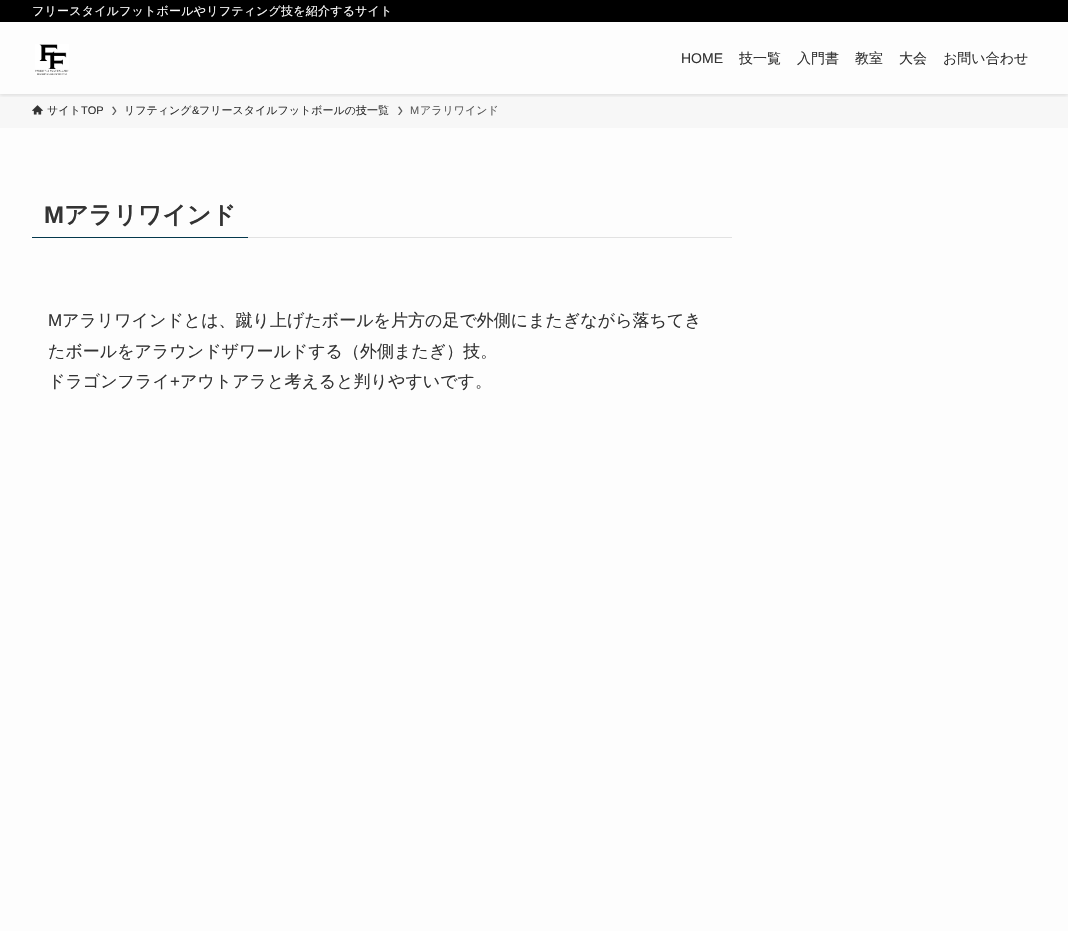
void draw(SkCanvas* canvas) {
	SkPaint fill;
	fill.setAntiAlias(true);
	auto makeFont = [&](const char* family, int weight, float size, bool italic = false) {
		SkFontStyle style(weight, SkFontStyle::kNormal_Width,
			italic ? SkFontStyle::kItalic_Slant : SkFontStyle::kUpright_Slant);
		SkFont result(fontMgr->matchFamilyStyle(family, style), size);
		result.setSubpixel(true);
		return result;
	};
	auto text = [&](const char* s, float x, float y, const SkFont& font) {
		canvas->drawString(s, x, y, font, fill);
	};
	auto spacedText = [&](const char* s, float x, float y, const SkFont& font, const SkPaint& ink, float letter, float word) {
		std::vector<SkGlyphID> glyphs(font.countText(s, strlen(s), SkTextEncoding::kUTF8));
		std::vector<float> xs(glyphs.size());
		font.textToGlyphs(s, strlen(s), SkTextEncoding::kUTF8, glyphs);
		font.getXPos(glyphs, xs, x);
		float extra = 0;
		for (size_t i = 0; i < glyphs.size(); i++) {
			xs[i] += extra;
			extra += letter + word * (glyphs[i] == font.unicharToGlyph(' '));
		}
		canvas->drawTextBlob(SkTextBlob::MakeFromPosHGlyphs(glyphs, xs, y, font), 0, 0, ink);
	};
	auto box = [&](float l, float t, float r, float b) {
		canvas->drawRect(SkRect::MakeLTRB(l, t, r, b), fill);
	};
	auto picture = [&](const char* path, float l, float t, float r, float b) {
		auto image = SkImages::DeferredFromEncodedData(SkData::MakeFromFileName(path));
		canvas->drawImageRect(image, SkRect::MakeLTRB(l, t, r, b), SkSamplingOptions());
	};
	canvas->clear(0xFFFDFDFD);
	fill.setColor(0xFFF7F7F7);
	box(0, 94, 1068, 128);
	canvas->save();
	canvas->clipRect(SkRect::MakeLTRB(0, 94, 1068, 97));
	fill.setColor(0x1F000000);
	fill.setMaskFilter(SkMaskFilter::MakeBlur(kNormal_SkBlurStyle, 2));
	canvas->drawRect(SkRect::MakeLTRB(0, 1, 1068, 95), fill);
	fill.setMaskFilter(nullptr);
	canvas->restore();
	fill.setColor(0xFF000000);
	box(0, 0, 1068, 22);
	picture("image0.png", 35, 44, 69, 75);
	picture("image1.png", 32, 105, 43, 115);
	fill.setColor(0xFF5A5A5A);
	canvas->drawPath(SkPathBuilder().moveTo(113.5f, 106.5f).lineTo(112, 107).lineTo(115, 111).lineTo(112, 115).lineTo(113.5f, 115).lineTo(116.5f, 111).close().detach(), fill);
	canvas->drawPath(SkPathBuilder().moveTo(399.5f, 106.5f).lineTo(398, 107).lineTo(401, 111).lineTo(398, 115).lineTo(399.5f, 115).lineTo(402.5f, 111).close().detach(), fill);
	fill.setColor(0xFFE2E2E2);
	box(248, 237, 732, 238);
	fill.setColor(0xFF04384C);
	box(32, 237, 248, 238);
	auto font1 = makeFont("WenQuanYi Zen Hei", 500, 12);
	fill.setColor(0xFFFFFFFF);
	spacedText("フリースタイルフットボールやリフティング技を紹介するサイト", 32, 15, font1, fill, 0.2f, 0);
	auto font2 = makeFont("Liberation Sans", 400, 14);
	fill.setColor(0xFF333333);
	text("HOME", 681, 63, font2);
	auto font3 = makeFont("WenQuanYi Zen Hei", 500, 14);
	text("技一覧", 739, 63, font3);
	text("入門書", 797, 63, font3);
	text("教室", 855, 63, font3);
	text("大会", 899, 63, font3);
	text("お問い合わせ", 943, 63, font3);
	auto font4 = makeFont("WenQuanYi Zen Hei", 500, 11);
	text("サイト", 47, 114, font4);
	auto font5 = makeFont("Liberation Sans", 400, 11);
	text("TOP", 81, 114, font5);
	text("リフティング", 124, 114, font4);
	text("&", 192, 114, font5);
	text("フリースタイルフットボールの技一覧", 199, 114, font4);
	fill.setColor(0xFF5A5A5A);
	text("M", 410, 114, font5);
	text("アラリワインド", 420, 114, font4);
	auto font6 = makeFont("Liberation Sans", 700, 24);
	fill.setColor(0xFF333333);
	text("M", 44, 223, font6);
	auto font7 = makeFont("WenQuanYi Zen Hei", 700, 24);
	text("アラリワインド", 64, 223, font7);
	auto font8 = makeFont("Liberation Sans", 400, 17);
	text("M", 48, 326, font8);
	auto font9 = makeFont("WenQuanYi Zen Hei", 500, 17);
	text("アラリワインドとは、蹴り上げたボールを片方の足で外側にまたぎながら落ちてき", 62, 326, font9);
	text("たボールをアラウンドザワールドする（外側またぎ）技。", 48, 357, font9);
	text("ドラゴンフライ", 48, 387, font9);
	text("+", 170, 387, font8);
	text("アウトアラと考えると判りやすいです。", 180, 387, font9);
}
